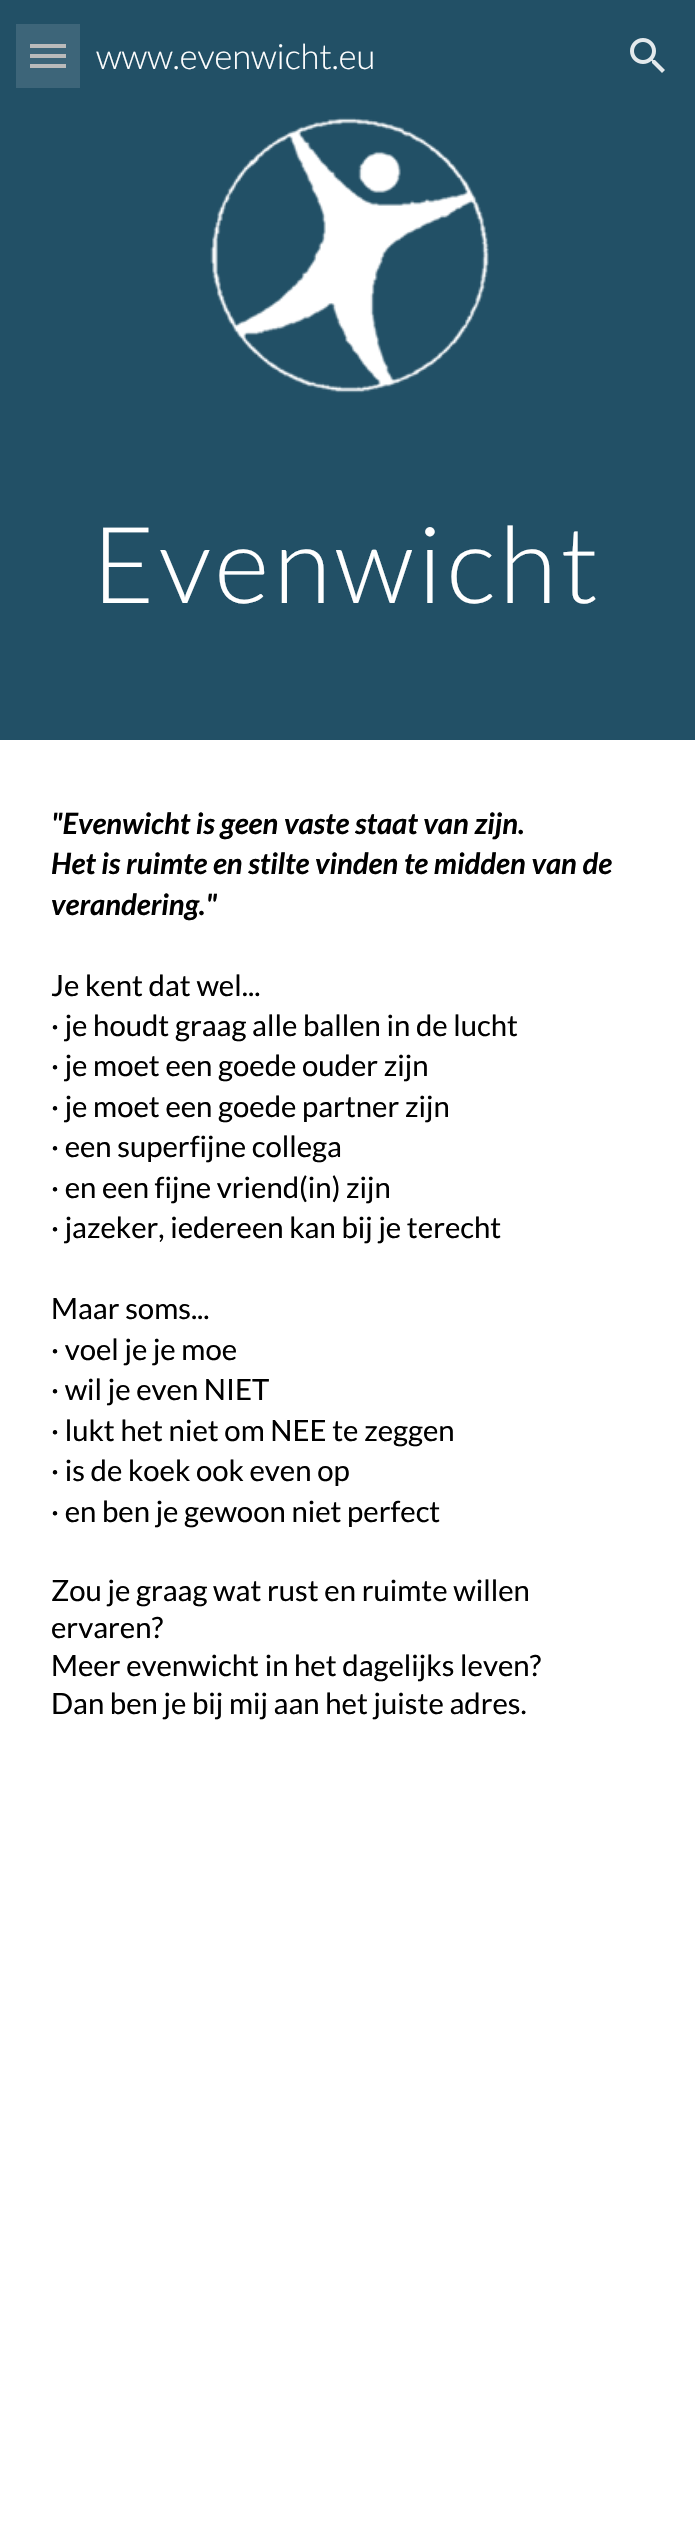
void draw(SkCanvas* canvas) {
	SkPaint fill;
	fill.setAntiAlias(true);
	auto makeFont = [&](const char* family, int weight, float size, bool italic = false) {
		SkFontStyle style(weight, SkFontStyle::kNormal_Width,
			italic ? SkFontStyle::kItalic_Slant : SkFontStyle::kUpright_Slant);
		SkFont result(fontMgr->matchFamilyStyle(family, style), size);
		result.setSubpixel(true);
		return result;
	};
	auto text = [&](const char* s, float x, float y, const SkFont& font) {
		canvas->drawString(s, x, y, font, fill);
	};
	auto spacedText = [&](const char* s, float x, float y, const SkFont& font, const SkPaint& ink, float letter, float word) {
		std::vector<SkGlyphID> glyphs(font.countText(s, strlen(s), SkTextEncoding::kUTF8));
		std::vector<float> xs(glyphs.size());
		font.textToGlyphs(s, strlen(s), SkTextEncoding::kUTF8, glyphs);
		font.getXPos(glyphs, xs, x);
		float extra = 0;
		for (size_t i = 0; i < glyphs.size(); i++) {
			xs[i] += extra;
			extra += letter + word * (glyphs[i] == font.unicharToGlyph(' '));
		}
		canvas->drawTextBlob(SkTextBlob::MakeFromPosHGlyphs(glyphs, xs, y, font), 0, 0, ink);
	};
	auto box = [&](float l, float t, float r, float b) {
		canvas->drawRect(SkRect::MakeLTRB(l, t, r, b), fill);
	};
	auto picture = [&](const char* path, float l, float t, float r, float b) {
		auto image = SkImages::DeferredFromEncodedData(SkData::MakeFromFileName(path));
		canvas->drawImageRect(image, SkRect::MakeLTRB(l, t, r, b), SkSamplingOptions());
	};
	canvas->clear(0xFFFFFFFF);
	fill.setColor(0xFF225066);
	box(0, 0, 695, 740);
	fill.setColor(0xFFB2B2B2);
	box(30, 44, 66, 48);
	box(30, 54, 66, 58);
	box(30, 64, 66, 68);
	fill.setColor(0x1FFFFFFF);
	box(16, 24, 80, 88);
	picture("image0.png", 630, 38, 665, 73);
	picture("image1.png", 210, 117, 489, 393);
	auto font1 = makeFont("Lato", 300, 34.75f);
	fill.setColor(0xFFFFFFFF);
	text("www.evenwicht.eu", 96, 69, font1);
	auto font2 = makeFont("Lato", 300, 106.5f);
	spacedText("Evenwicht", 92, 603, font2, fill, 4, 0);
	auto font3 = makeFont("Lato", 700, 29.3f, true);
	fill.setColor(0xFF000000);
	text("\"Evenwicht is geen vaste staat van zijn.", 51, 834, font3);
	text("Het is ruimte en stilte vinden te midden van de", 51, 874, font3);
	text("verandering.\"", 51, 915, font3);
	auto font4 = makeFont("Lato", 400, 29.3f);
	text("Je kent dat wel...", 51, 996, font4);
	text("· je houdt graag alle ballen in de lucht", 51, 1036, font4);
	text("· je moet een goede ouder zijn", 51, 1076, font4);
	text("· je moet een goede partner zijn", 51, 1117, font4);
	text("· een superfijne collega", 51, 1157, font4);
	text("· en een fijne vriend(in) zijn", 51, 1198, font4);
	text("· jazeker, iedereen kan bij je terecht", 51, 1238, font4);
	text("Maar soms...", 51, 1319, font4);
	text("· voel je je moe", 51, 1360, font4);
	text("· wil je even NIET", 51, 1400, font4);
	text("· lukt het niet om NEE te zeggen", 51, 1441, font4);
	text("· is de koek ook even op", 51, 1481, font4);
	text("· en ben je gewoon niet perfect", 51, 1522, font4);
	text("Zou je graag wat rust en ruimte willen", 51, 1601, font4);
	text("ervaren?", 51, 1638, font4);
	text("Meer evenwicht in het dagelijks leven?", 51, 1676, font4);
	text("Dan ben je bij mij aan het juiste adres.", 51, 1714, font4);
}
